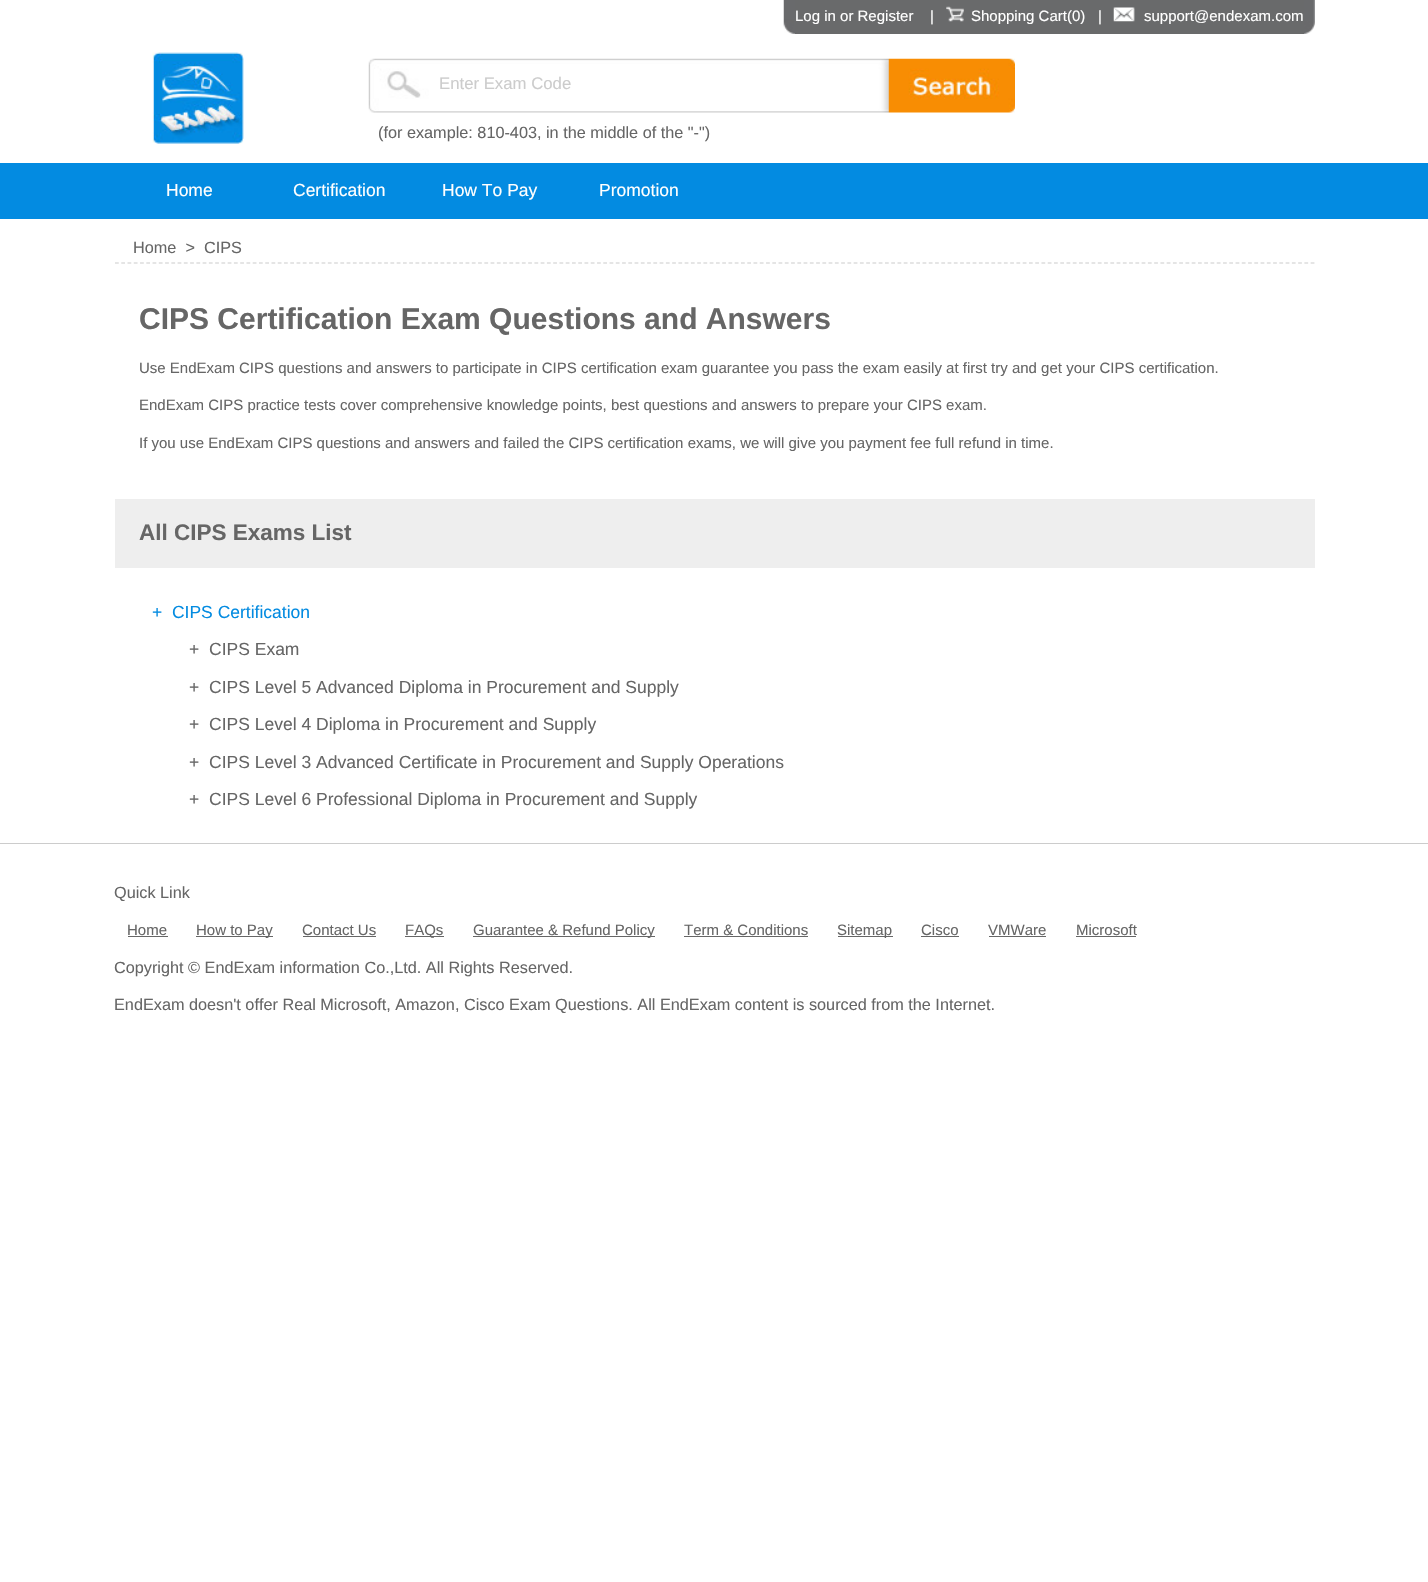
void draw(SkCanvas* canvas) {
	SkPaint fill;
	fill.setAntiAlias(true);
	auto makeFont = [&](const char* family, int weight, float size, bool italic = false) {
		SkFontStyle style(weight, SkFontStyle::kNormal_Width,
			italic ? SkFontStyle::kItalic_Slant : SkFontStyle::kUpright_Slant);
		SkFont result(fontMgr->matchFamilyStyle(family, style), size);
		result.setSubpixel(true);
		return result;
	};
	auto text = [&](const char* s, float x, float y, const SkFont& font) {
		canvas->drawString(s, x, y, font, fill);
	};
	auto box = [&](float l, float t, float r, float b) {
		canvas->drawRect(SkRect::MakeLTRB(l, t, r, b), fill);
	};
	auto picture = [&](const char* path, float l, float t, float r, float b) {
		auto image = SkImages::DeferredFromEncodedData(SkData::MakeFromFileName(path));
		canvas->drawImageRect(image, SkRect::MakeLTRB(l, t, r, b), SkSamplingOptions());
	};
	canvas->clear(0xFFFFFFFF);
	picture("image0.png", 783, 0, 795, 34);
	fill.setColor(0xFF696A6B);
	box(795, 0, 1304, 34);
	picture("image1.png", 946, 6, 964, 22);
	picture("image2.png", 1113, 7, 1135, 22);
	picture("image3.png", 1304, 0, 1315, 34);
	picture("image4.png", 152, 52, 244, 144);
	picture("image5.png", 368, 58, 1015, 113);
	fill.setColor(0xFF038BE1);
	box(0, 163, 1428, 219);
	fill.setStyle(SkPaint::kStroke_Style);
	fill.setStrokeWidth(1.2f);
	fill.setColor(0xFFCCCCCC);
	fill.setPathEffect(SkDashPathEffect::Make({{3.75f, 2.51f}}, 0));
	canvas->drawPath(SkPathBuilder().moveTo(115, 263).lineTo(1315, 263).detach(), fill);
	fill.setPathEffect(nullptr);
	fill.setStyle(SkPaint::kFill_Style);
	fill.setColor(0xFFEEEEEE);
	box(115, 499, 1315, 568);
	fill.setColor(0xFFCCCCCC);
	box(0, 843, 1428, 844);
	fill.setColor(0xFF666666);
	box(128, 936, 168, 937);
	box(196, 936, 273, 937);
	box(303, 936, 376, 937);
	box(405, 936, 444, 937);
	box(473, 936, 655, 937);
	box(684, 936, 808, 937);
	box(838, 936, 893, 937);
	box(921, 936, 959, 937);
	box(989, 936, 1046, 937);
	box(1076, 936, 1136, 937);
	auto font1 = makeFont("Liberation Sans", 400, 15);
	fill.setColor(0xFFFFFFFF);
	text("Log in or Register", 795, 21, font1);
	text("|", 930, 21, font1);
	text("Shopping Cart(0)", 971, 21, font1);
	text("|", 1098, 21, font1);
	text("support@endexam.com", 1144, 21, font1);
	auto font2 = makeFont("Liberation Sans", 400, 16.75f);
	fill.setColor(0xFFCCCCCC);
	text("Enter Exam Code", 439, 89, font2);
	auto font3 = makeFont("Liberation Sans", 400, 16.25f);
	fill.setColor(0xFF666666);
	text("(for example: 810-403, in the middle of the \"-\")", 378, 138, font3);
	auto font4 = makeFont("Liberation Sans", 400, 17.5f);
	fill.setColor(0xFFFFFFFF);
	text("Home", 166, 196, font4);
	text("Certification", 293, 196, font4);
	text("How To Pay", 442, 196, font4);
	text("Promotion", 599, 196, font4);
	fill.setColor(0xFF666666);
	text("Home  >", 133, 253, font3);
	text("CIPS", 204, 253, font3);
	auto font5 = makeFont("Liberation Sans", 700, 30);
	text("CIPS Certification Exam Questions and Answers", 139, 329, font5);
	text("Use EndExam CIPS questions and answers to participate in CIPS certification exam guarantee you pass the exam easily at first try and get your CIPS certification.", 139, 373, font1);
	text("EndExam CIPS practice tests cover comprehensive knowledge points, best questions and answers to prepare your CIPS exam.", 139, 410, font1);
	text("If you use EndExam CIPS questions and answers and failed the CIPS certification exams, we will give you payment fee full refund in time.", 139, 448, font1);
	auto font6 = makeFont("Liberation Sans", 700, 22.5f);
	text("All CIPS Exams List", 139, 540, font6);
	fill.setColor(0xFF038BE1);
	text("+  CIPS Certification", 152, 618, font4);
	fill.setColor(0xFF666666);
	text("+", 189, 655, font4);
	text("CIPS Exam", 209, 655, font4);
	text("+", 189, 693, font4);
	text("CIPS Level 5 Advanced Diploma in Procurement and Supply", 209, 693, font4);
	text("+", 189, 730, font4);
	text("CIPS Level 4 Diploma in Procurement and Supply", 209, 730, font4);
	text("+", 189, 768, font4);
	text("CIPS Level 3 Advanced Certificate in Procurement and Supply Operations", 209, 768, font4);
	text("+", 189, 805, font4);
	text("CIPS Level 6 Professional Diploma in Procurement and Supply", 209, 805, font4);
	text("Quick Link", 114, 898, font3);
	text("Home", 127, 935, font1);
	text("How to Pay", 196, 935, font1);
	text("Contact Us", 302, 935, font1);
	text("FAQs", 405, 935, font1);
	text("Guarantee & Refund Policy", 473, 935, font1);
	text("Term & Conditions", 684, 935, font1);
	text("Sitemap", 837, 935, font1);
	text("Cisco", 921, 935, font1);
	text("VMWare", 988, 935, font1);
	text("Microsoft", 1076, 935, font1);
	text("Copyright © EndExam information Co.,Ltd. All Rights Reserved.", 114, 973, font3);
	text("EndExam doesn't offer Real Microsoft, Amazon, Cisco Exam Questions. All EndExam content is sourced from the Internet.", 114, 1010, font3);
}
